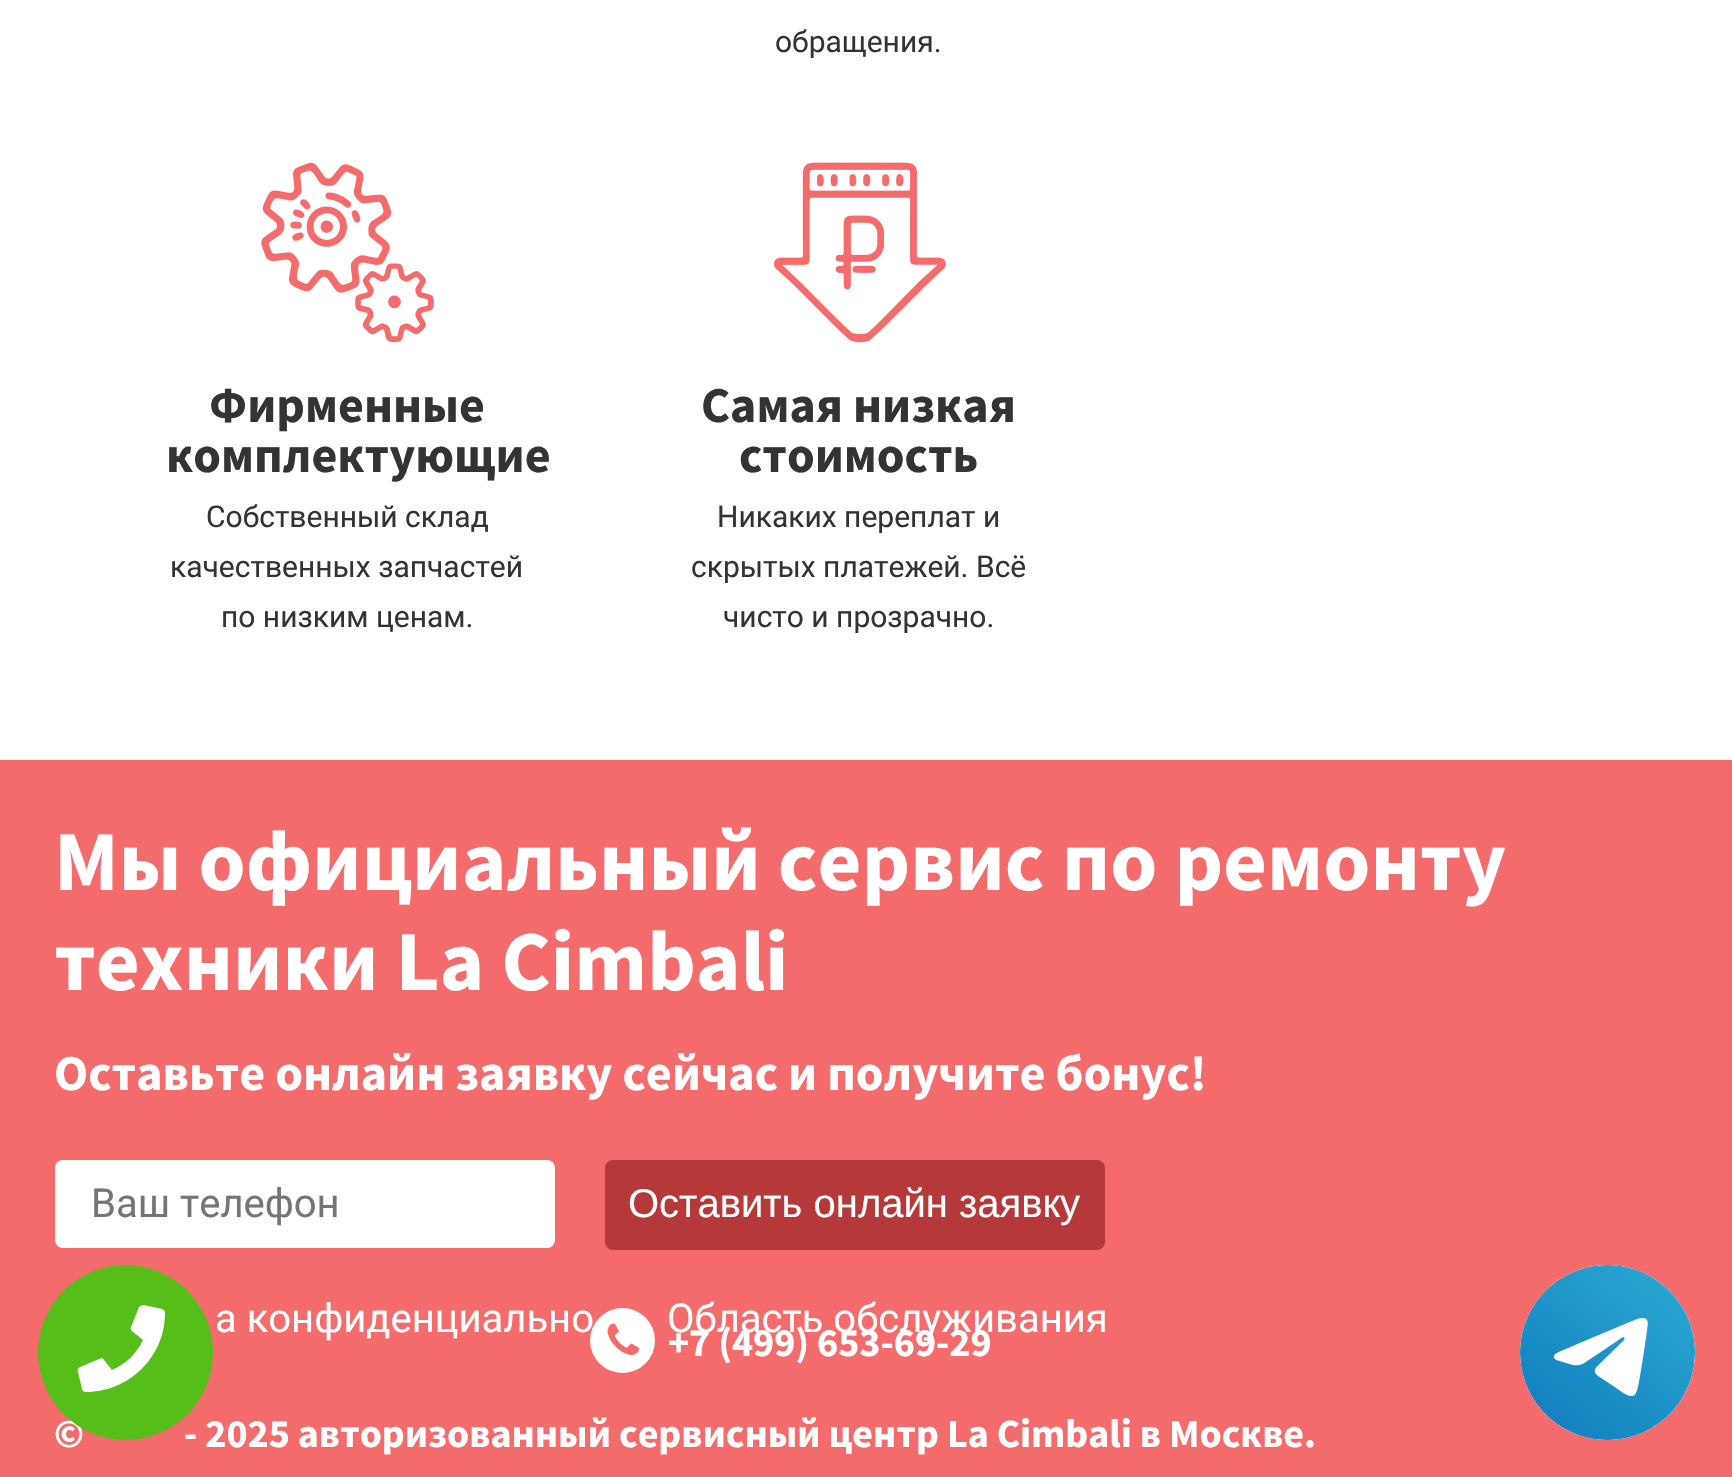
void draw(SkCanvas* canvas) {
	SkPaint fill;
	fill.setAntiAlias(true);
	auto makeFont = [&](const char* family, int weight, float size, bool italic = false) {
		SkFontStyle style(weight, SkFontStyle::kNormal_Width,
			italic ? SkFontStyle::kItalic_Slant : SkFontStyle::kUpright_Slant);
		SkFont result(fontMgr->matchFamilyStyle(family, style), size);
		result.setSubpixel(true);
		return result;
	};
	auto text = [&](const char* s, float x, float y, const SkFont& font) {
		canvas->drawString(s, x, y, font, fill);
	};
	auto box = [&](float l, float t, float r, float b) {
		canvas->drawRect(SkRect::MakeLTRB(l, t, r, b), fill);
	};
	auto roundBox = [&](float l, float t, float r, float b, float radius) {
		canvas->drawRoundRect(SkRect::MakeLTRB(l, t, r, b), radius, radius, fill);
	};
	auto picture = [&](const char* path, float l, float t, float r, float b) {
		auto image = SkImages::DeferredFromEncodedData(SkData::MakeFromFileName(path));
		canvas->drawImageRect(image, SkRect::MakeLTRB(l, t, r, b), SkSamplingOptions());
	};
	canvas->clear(0xFFFFFFFF);
	picture("image0.png", 261, 162, 434, 343);
	picture("image1.png", 773, 162, 946, 343);
	fill.setColor(0xFFF36B6B);
	box(0, 760, 1732, 1477);
	fill.setColor(0xFFFFFFFF);
	roundBox(55, 1160, 555, 1248, 8);
	fill.setColor(0xFFB53939);
	canvas->drawRoundRect(SkRect::MakeLTRB(606.5f, 1161.5f, 1103.5f, 1248.5f), 6.5f, 6.5f, fill);
	fill.setStyle(SkPaint::kStroke_Style);
	fill.setStrokeWidth(3);
	canvas->drawRoundRect(SkRect::MakeLTRB(606.5f, 1161.5f, 1103.5f, 1248.5f), 6.5f, 6.5f, fill);
	fill.setStyle(SkPaint::kFill_Style);
	fill.setColor(0xFFFFFFFF);
	canvas->drawCircle(1607.5f, 1352.5f, 87.5f, fill);
	picture("image2.png", 1520, 1265, 1695, 1440);
	canvas->drawCircle(622.5f, 1340.5f, 32.5f, fill);
	picture("image3.png", 607, 1323, 639, 1355);
	auto font1 = makeFont("Roboto", 400, 30);
	fill.setColor(0xFF333333);
	text("обращения.", 775, 52, font1);
	auto font2 = makeFont("Source Sans Pro", 700, 50);
	text("Фирменные", 209, 422, font2);
	text("комплектующие", 166, 472, font2);
	text("Собственный склад", 206, 527, font1);
	text("качественных запчастей", 170, 577, font1);
	text("по низким ценам.", 221, 627, font1);
	text("Самая низкая", 701, 422, font2);
	text("стоимость", 739, 472, font2);
	text("Никаких переплат и", 717, 527, font1);
	text("скрытых платежей. Всё", 691, 577, font1);
	text("чисто и прозрачно.", 723, 627, font1);
	auto font3 = makeFont("Source Sans Pro", 700, 85);
	fill.setColor(0xFFFFFFFF);
	text("Мы официальный сервис по ремонту", 54, 890, font3);
	text("техники La Cimbali", 54, 990, font3);
	text("Оставьте онлайн заявку сейчас и получите бонус!", 54, 1090, font2);
	auto font4 = makeFont("Roboto", 400, 40);
	fill.setColor(0xFF757575);
	text("Ваш телефон", 91, 1217, font4);
	auto font5 = makeFont("Liberation Sans", 400, 40);
	fill.setColor(0xFFFFFFFF);
	text("Оставить онлайн заявку", 628, 1217, font5);
	text("а конфиденциально", 215, 1332, font4);
	text("Область обслуживания", 667, 1332, font4);
	auto font6 = makeFont("Source Sans Pro", 700, 40);
	text("+7 (499) 653-69-29", 668, 1356, font6);
	text("©", 54, 1447, font6);
	text("- 2025 авторизованный сервисный центр La Cimbali в Москве.", 184, 1447, font6);
	fill.setColor(0xFF56BE19);
	canvas->drawCircle(125.5f, 1352.5f, 87.5f, fill);
	fill.setColor(0xFFFFFFFF);
	canvas->drawPath(SkPathBuilder().moveTo(162, 1309).lineTo(144, 1305).cubicTo(142, 1305, 140, 1306, 139, 1307).lineTo(131, 1327).cubicTo(130, 1328, 131, 1330, 132, 1331).lineTo(143, 1340).cubicTo(137, 1353, 126, 1364, 112, 1370).lineTo(104, 1360).cubicTo(103, 1358, 101, 1358, 99, 1359).lineTo(80, 1367).cubicTo(78, 1368, 77, 1370, 78, 1372).lineTo(82, 1389).cubicTo(82, 1391, 84, 1392, 86, 1392).cubicTo(129, 1392, 165, 1357, 165, 1313).cubicTo(165, 1311, 164, 1310, 162, 1309).close().detach(), fill);
}
